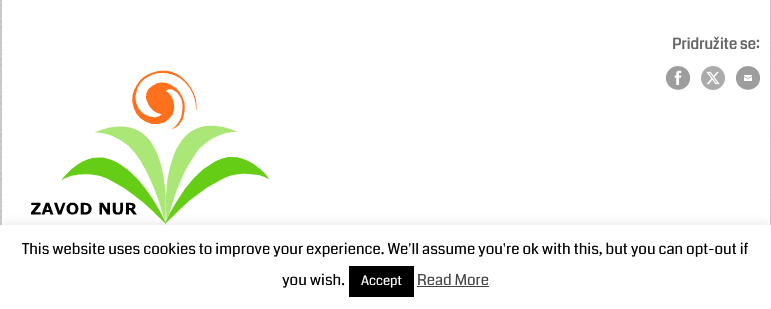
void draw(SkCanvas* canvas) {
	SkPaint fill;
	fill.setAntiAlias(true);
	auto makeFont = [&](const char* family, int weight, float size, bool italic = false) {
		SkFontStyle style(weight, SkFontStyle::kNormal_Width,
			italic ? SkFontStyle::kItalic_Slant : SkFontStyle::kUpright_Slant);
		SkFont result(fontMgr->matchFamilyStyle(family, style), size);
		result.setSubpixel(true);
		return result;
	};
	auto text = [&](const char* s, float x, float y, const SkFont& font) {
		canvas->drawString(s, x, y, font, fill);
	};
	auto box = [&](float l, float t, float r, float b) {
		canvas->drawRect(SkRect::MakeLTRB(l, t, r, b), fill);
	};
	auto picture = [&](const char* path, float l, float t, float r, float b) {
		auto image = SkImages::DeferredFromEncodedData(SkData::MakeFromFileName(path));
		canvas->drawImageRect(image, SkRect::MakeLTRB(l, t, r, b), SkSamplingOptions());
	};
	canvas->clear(0xFFFFFFFF);
	picture("image0.png", 0, 0, 771, 225);
	fill.setColor(0xFFBBBBBB);
	fill.setMaskFilter(SkMaskFilter::MakeBlur(kNormal_SkBlurStyle, 4));
	canvas->drawRect(SkRect::MakeLTRB(2, 0, 770, 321), fill);
	fill.setMaskFilter(nullptr);
	fill.setColor(0xFFFFFFFF);
	box(2, 0, 770, 225);
	picture("image1.png", 666, 66, 690, 90);
	picture("image2.png", 701, 66, 725, 90);
	picture("image3.png", 736, 66, 760, 90);
	picture("image4.png", 31, 70, 270, 225);
	fill.setColor(0x4DACABAB);
	fill.setMaskFilter(SkMaskFilter::MakeBlur(kNormal_SkBlurStyle, 5));
	canvas->drawRect(SkRect::MakeLTRB(0, 224, 771, 308), fill);
	fill.setMaskFilter(nullptr);
	fill.setColor(0xFFFFFFFF);
	box(0, 225, 771, 309);
	fill.setColor(0xFF000000);
	box(349, 266, 414, 297);
	fill.setColor(0xFF444444);
	box(417, 286, 489, 287);
	auto font1 = makeFont("Coda", 700, 15);
	fill.setColor(0xFF666666);
	text("Pridružite se:", 672, 49, font1);
	auto font2 = makeFont("Coda", 400, 15);
	fill.setColor(0xFF000000);
	text("This website uses cookies to improve your experience. We'll assume you're ok with this, but you can opt-out if", 22, 254, font2);
	text("you wish.", 282, 285, font2);
	auto font3 = makeFont("Coda", 400, 13);
	fill.setColor(0xFFFFFFFF);
	text("Accept", 361, 285, font3);
	fill.setColor(0xFF444444);
	text("Read More", 417, 285, font2);
}
